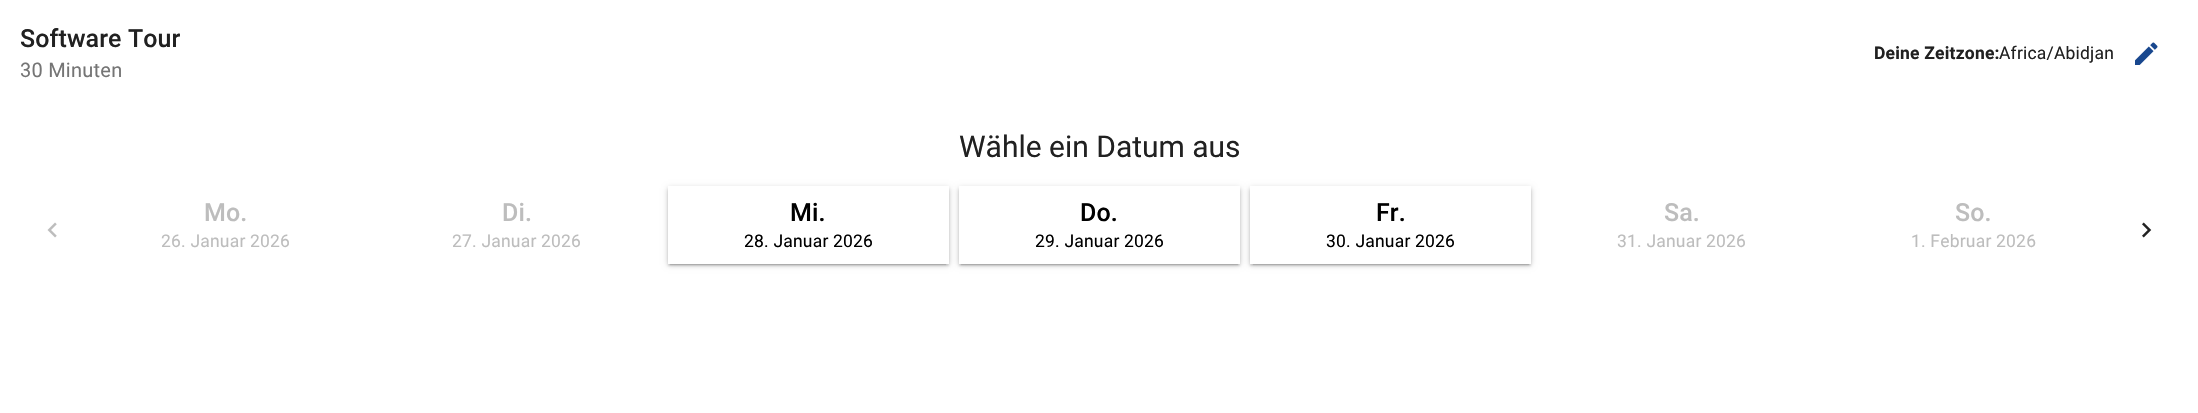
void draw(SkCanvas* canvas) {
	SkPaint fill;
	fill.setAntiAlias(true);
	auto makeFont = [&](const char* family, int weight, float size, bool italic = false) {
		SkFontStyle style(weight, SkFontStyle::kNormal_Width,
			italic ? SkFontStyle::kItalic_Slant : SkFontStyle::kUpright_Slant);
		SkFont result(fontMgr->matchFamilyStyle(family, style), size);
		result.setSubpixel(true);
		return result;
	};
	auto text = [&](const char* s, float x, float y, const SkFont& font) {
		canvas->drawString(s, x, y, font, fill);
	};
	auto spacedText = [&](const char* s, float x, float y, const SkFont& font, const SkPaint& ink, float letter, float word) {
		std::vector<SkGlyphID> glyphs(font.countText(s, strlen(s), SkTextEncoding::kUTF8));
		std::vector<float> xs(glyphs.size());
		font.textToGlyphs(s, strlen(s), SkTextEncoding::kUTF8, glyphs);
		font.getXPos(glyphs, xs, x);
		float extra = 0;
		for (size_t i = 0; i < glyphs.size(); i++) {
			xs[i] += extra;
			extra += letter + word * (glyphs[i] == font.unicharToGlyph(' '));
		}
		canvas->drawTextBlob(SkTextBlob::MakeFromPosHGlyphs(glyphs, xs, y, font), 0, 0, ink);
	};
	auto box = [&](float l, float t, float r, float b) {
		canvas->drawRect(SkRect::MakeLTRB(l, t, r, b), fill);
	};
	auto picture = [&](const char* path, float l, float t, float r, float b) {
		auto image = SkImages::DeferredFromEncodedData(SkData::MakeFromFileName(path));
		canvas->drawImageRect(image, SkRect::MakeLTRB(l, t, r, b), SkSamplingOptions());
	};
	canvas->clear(0xFFFFFFFF);
	picture("image0.png", 2135, 42, 2158, 65);
	picture("image1.png", 47, 222, 57, 238);
	fill.setColor(0x1F000000);
	fill.setMaskFilter(SkMaskFilter::MakeBlur(kNormal_SkBlurStyle, 0.5f));
	canvas->drawRect(SkRect::MakeLTRB(670, 193, 946, 265), fill);
	fill.setMaskFilter(nullptr);
	fill.setColor(0x24000000);
	fill.setMaskFilter(SkMaskFilter::MakeBlur(kNormal_SkBlurStyle, 1));
	canvas->drawRect(SkRect::MakeLTRB(668, 189, 949, 266), fill);
	fill.setMaskFilter(nullptr);
	fill.setColor(0x33000000);
	fill.setMaskFilter(SkMaskFilter::MakeBlur(kNormal_SkBlurStyle, 3));
	canvas->drawRect(SkRect::MakeLTRB(668, 188, 949, 265), fill);
	fill.setMaskFilter(nullptr);
	fill.setColor(0xFFFFFFFF);
	box(668, 186, 949, 264);
	fill.setColor(0x1F000000);
	fill.setMaskFilter(SkMaskFilter::MakeBlur(kNormal_SkBlurStyle, 0.5f));
	canvas->drawRect(SkRect::MakeLTRB(961, 193, 1238, 265), fill);
	fill.setMaskFilter(nullptr);
	fill.setColor(0x24000000);
	fill.setMaskFilter(SkMaskFilter::MakeBlur(kNormal_SkBlurStyle, 1));
	canvas->drawRect(SkRect::MakeLTRB(959, 189, 1240, 266), fill);
	fill.setMaskFilter(nullptr);
	fill.setColor(0x33000000);
	fill.setMaskFilter(SkMaskFilter::MakeBlur(kNormal_SkBlurStyle, 3));
	canvas->drawRect(SkRect::MakeLTRB(959, 188, 1240, 265), fill);
	fill.setMaskFilter(nullptr);
	fill.setColor(0xFFFFFFFF);
	box(959, 186, 1240, 264);
	fill.setColor(0x1F000000);
	fill.setMaskFilter(SkMaskFilter::MakeBlur(kNormal_SkBlurStyle, 0.5f));
	canvas->drawRect(SkRect::MakeLTRB(1253, 193, 1529, 265), fill);
	fill.setMaskFilter(nullptr);
	fill.setColor(0x24000000);
	fill.setMaskFilter(SkMaskFilter::MakeBlur(kNormal_SkBlurStyle, 1));
	canvas->drawRect(SkRect::MakeLTRB(1250, 189, 1531, 266), fill);
	fill.setMaskFilter(nullptr);
	fill.setColor(0x33000000);
	fill.setMaskFilter(SkMaskFilter::MakeBlur(kNormal_SkBlurStyle, 3));
	canvas->drawRect(SkRect::MakeLTRB(1250, 188, 1531, 265), fill);
	fill.setMaskFilter(nullptr);
	fill.setColor(0xFFFFFFFF);
	box(1250, 186, 1531, 264);
	picture("image2.png", 2142, 222, 2152, 238);
	auto font1 = makeFont("Roboto", 500, 25);
	fill.setColor(0xFF212121);
	spacedText("Software Tour", 20, 47, font1, fill, 0.1f, 0);
	auto font2 = makeFont("Roboto", 400, 20);
	fill.setColor(0xFF757575);
	spacedText("30 Minuten", 20, 77, font2, fill, 0.25f, 0);
	auto font3 = makeFont("Roboto", 700, 17.5f);
	fill.setColor(0xFF212121);
	spacedText("Deine Zeitzone:", 1874, 59, font3, fill, 0.2f, 0);
	auto font4 = makeFont("Roboto", 400, 17.5f);
	spacedText("Africa/Abidjan", 1999, 59, font4, fill, 0.2f, 0);
	auto font5 = makeFont("Roboto", 400, 30);
	text("Wähle ein Datum aus", 959, 157, font5);
	fill.setColor(0xFFBDBDBD);
	spacedText("Mo.", 204, 221, font1, fill, 0.1f, 0);
	spacedText("26. Januar 2026", 161, 247, font4, fill, 0.2f, 0);
	spacedText("Di.", 502, 221, font1, fill, 0.1f, 0);
	spacedText("27. Januar 2026", 452, 247, font4, fill, 0.2f, 0);
	fill.setColor(0xFF000000);
	spacedText("Mi.", 790, 221, font1, fill, 0.1f, 0);
	spacedText("28. Januar 2026", 744, 247, font4, fill, 0.2f, 0);
	spacedText("Do.", 1080, 221, font1, fill, 0.1f, 0);
	spacedText("29. Januar 2026", 1035, 247, font4, fill, 0.2f, 0);
	spacedText("Fr.", 1376, 221, font1, fill, 0.1f, 0);
	spacedText("30. Januar 2026", 1326, 247, font4, fill, 0.2f, 0);
	fill.setColor(0xFFBDBDBD);
	spacedText("Sa.", 1664, 221, font1, fill, 0.1f, 0);
	spacedText("31. Januar 2026", 1617, 247, font4, fill, 0.2f, 0);
	spacedText("So.", 1955, 221, font1, fill, 0.1f, 0);
	spacedText("1. Februar 2026", 1911, 247, font4, fill, 0.2f, 0);
}
